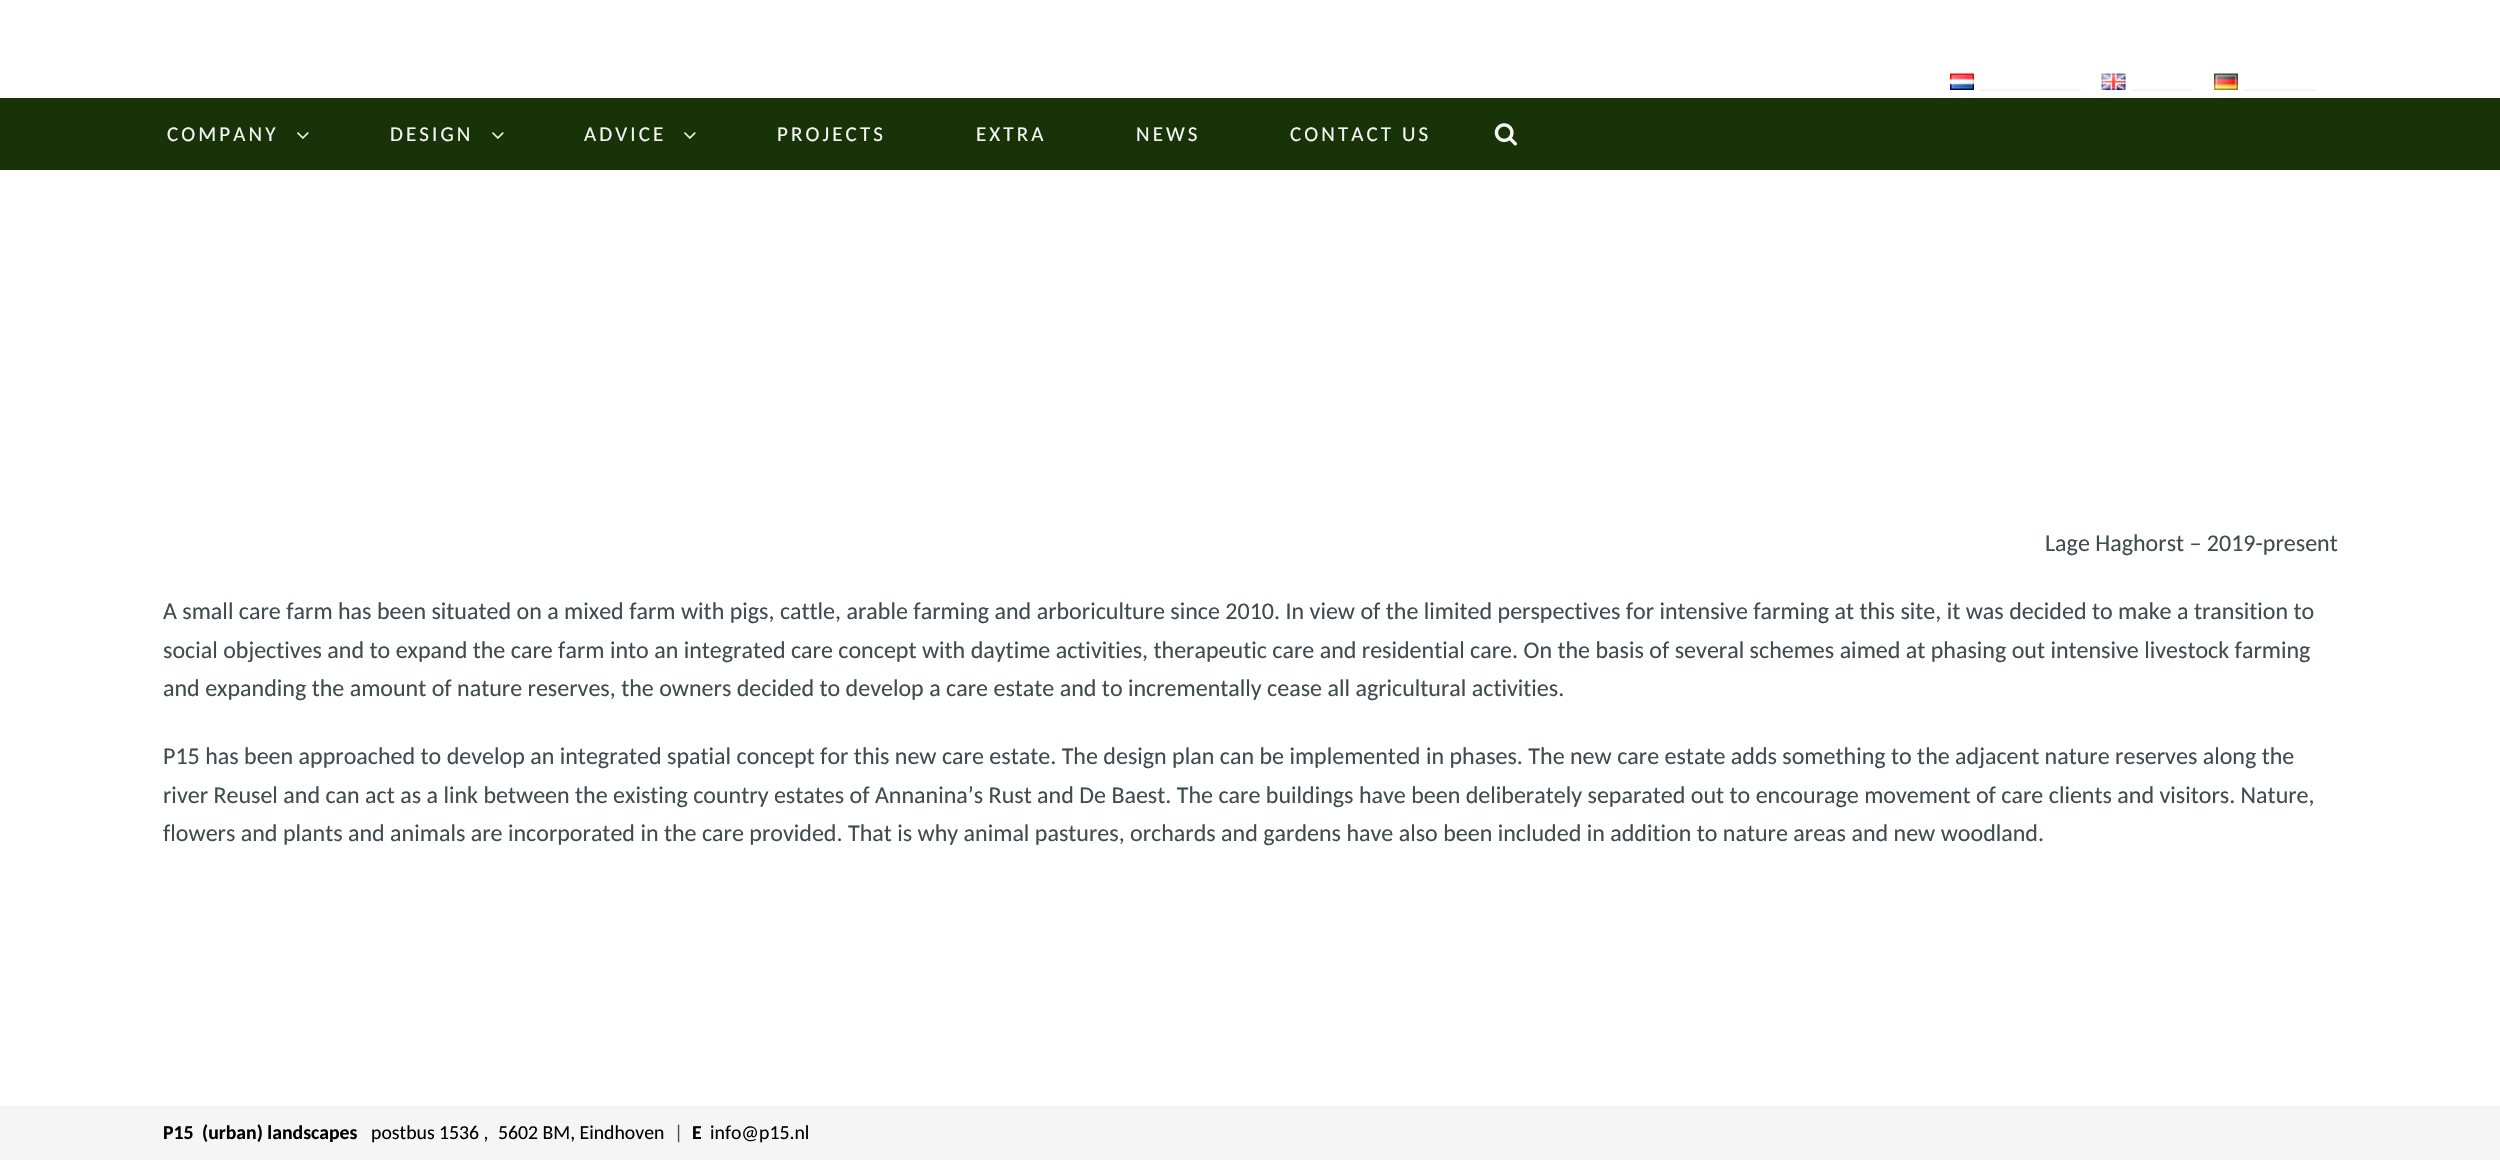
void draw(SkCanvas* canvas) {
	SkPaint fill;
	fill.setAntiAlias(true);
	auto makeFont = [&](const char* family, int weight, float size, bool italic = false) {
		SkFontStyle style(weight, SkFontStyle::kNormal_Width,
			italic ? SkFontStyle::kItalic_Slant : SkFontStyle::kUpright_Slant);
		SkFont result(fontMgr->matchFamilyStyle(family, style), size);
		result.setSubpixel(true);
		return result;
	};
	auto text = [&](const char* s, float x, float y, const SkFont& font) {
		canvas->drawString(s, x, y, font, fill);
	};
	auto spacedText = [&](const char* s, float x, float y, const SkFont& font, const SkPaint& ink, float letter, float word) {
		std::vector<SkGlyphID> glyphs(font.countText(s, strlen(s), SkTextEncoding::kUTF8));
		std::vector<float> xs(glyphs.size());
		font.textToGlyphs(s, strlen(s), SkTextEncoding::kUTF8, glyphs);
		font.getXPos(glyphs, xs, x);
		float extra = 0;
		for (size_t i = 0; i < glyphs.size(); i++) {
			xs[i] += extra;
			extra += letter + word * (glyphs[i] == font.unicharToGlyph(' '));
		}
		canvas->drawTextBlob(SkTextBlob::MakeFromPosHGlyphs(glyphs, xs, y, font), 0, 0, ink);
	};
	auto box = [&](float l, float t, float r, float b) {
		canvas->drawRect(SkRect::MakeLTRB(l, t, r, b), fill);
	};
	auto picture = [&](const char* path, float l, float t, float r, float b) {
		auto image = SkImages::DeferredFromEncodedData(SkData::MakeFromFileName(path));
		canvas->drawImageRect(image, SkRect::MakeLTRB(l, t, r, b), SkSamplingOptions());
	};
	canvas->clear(0xFFFFFFFF);
	picture("image0.png", 1950, 73, 1974, 90);
	fill.setColor(0xFFF5F5F5);
	box(1980, 89, 2081, 91);
	picture("image1.png", 2101, 73, 2126, 90);
	box(2132, 89, 2193, 91);
	picture("image2.png", 2214, 73, 2238, 90);
	box(2244, 89, 2316, 91);
	fill.setColor(0xFF173307);
	box(0, 98, 2500, 170);
	picture("image3.png", 297, 132, 309, 139);
	picture("image3.png", 492, 132, 504, 139);
	picture("image3.png", 684, 132, 696, 139);
	picture("image4.png", 1494, 123, 1517, 146);
	fill.setColor(0xFFF5F5F5);
	box(0, 1106, 2500, 1160);
	auto font1 = makeFont("Carlito", 400, 21);
	spacedText("COMPANY", 167, 141, font1, fill, 3.1f, 0);
	spacedText("DESIGN", 390, 141, font1, fill, 3.1f, 0);
	spacedText("ADVICE", 584, 141, font1, fill, 3.1f, 0);
	spacedText("PROJECTS", 777, 141, font1, fill, 3.1f, 0);
	spacedText("EXTRA", 976, 141, font1, fill, 3.1f, 0);
	spacedText("NEWS", 1136, 141, font1, fill, 3.1f, 0);
	spacedText("CONTACT US", 1290, 141, font1, fill, 3.1f, 0);
	auto font2 = makeFont("Carlito", 400, 24);
	fill.setColor(0xFF404C4F);
	text("Lage Haghorst – 2019-present", 2045, 551, font2);
	text("A small care farm has been situated on a mixed farm with pigs, cattle, arable farming and arboriculture since 2010. In view of the limited perspectives for intensive farming at this site, it was decided to make a transition to", 163, 619, font2);
	text("social objectives and to expand the care farm into an integrated care concept with daytime activities, therapeutic care and residential care. On the basis of several schemes aimed at phasing out intensive livestock farming", 163, 658, font2);
	text("and expanding the amount of nature reserves, the owners decided to develop a care estate and to incrementally cease all agricultural activities.", 163, 696, font2);
	text("P15 has been approached to develop an integrated spatial concept for this new care estate. The design plan can be implemented in phases. The new care estate adds something to the adjacent nature reserves along the", 163, 764, font2);
	text("river Reusel and can act as a link between the existing country estates of Annanina’s Rust and De Baest. The care buildings have been deliberately separated out to encourage movement of care clients and visitors. Nature,", 163, 803, font2);
	text("flowers and plants and animals are incorporated in the care provided. That is why animal pastures, orchards and gardens have also been included in addition to nature areas and new woodland.", 163, 841, font2);
	auto font3 = makeFont("Carlito", 700, 19.75f);
	fill.setColor(0xFF000000);
	text("P15", 163, 1139, font3);
	text("(urban) landscapes", 202, 1139, font3);
	auto font4 = makeFont("Carlito", 400, 19.75f);
	text("postbus 1536 ,", 371, 1139, font4);
	text("5602 BM, Eindhoven", 498, 1139, font4);
	fill.setColor(0xFF404C4F);
	text("|", 674, 1139, font4);
	fill.setColor(0xFF000000);
	text("E", 692, 1139, font3);
	text("info@p15.nl", 710, 1139, font4);
}
